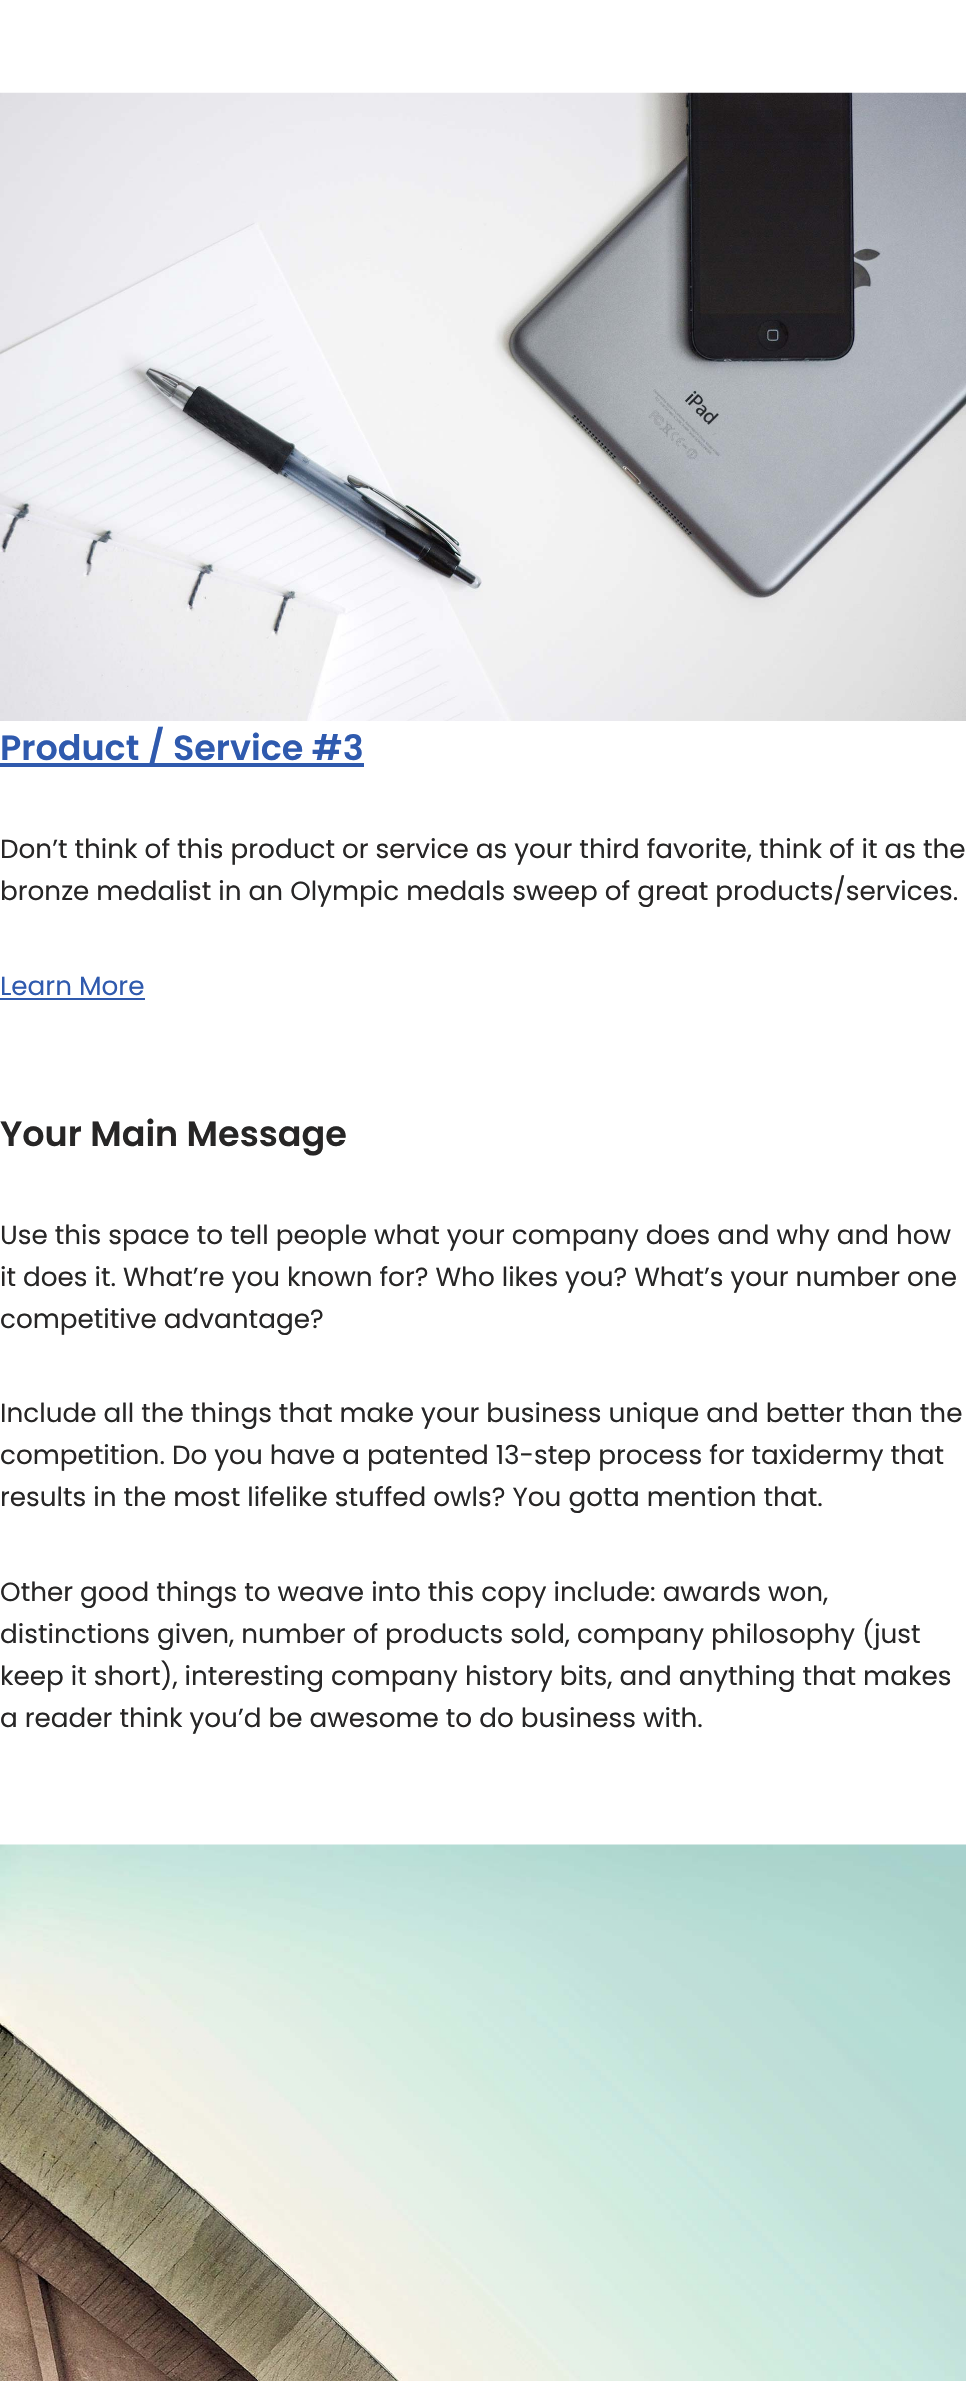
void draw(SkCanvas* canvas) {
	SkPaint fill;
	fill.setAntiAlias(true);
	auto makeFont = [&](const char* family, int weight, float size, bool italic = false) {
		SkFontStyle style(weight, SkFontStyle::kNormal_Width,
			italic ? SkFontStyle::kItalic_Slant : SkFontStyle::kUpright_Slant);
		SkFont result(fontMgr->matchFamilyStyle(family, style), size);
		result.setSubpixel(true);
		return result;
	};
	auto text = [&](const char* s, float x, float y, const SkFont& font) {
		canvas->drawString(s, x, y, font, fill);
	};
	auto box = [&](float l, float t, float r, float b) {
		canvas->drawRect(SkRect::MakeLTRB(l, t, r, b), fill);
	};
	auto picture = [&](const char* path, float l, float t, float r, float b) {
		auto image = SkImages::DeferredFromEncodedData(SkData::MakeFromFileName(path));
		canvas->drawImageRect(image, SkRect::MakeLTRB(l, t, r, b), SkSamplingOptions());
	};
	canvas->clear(0xFFFFFFFF);
	picture("image0.png", 0, 92, 966, 721);
	fill.setColor(0xFF2F5AAE);
	box(0, 763, 364, 767);
	box(0, 998, 145, 1000);
	picture("image1.png", 0, 1844, 966, 2381);
	auto font1 = makeFont("Poppins", 600, 35);
	text("Product / Service #3", 0, 760, font1);
	auto font2 = makeFont("Poppins", 400, 26.25f);
	fill.setColor(0xFF272626);
	text("Don’t think of this product or service as your third favorite, think of it as the", 0, 858, font2);
	text("bronze medalist in an Olympic medals sweep of great products/services.", 0, 900, font2);
	fill.setColor(0xFF2F5AAE);
	text("Learn More", 0, 995, font2);
	fill.setColor(0xFF272626);
	text("Your Main Message", 0, 1146, font1);
	text("Use this space to tell people what your company does and why and how", 0, 1244, font2);
	text("it does it. What’re you known for? Who likes you? What’s your number one", 0, 1286, font2);
	text("competitive advantage?", 0, 1328, font2);
	text("Include all the things that make your business unique and better than the", 0, 1422, font2);
	text("competition. Do you have a patented 13-step process for taxidermy that", 0, 1464, font2);
	text("results in the most lifelike stuffed owls? You gotta mention that.", 0, 1506, font2);
	text("Other good things to weave into this copy include: awards won,", 0, 1601, font2);
	text("distinctions given, number of products sold, company philosophy (just", 0, 1643, font2);
	text("keep it short), interesting company history bits, and anything that makes", 0, 1685, font2);
	text("a reader think you’d be awesome to do business with.", 0, 1727, font2);
}
